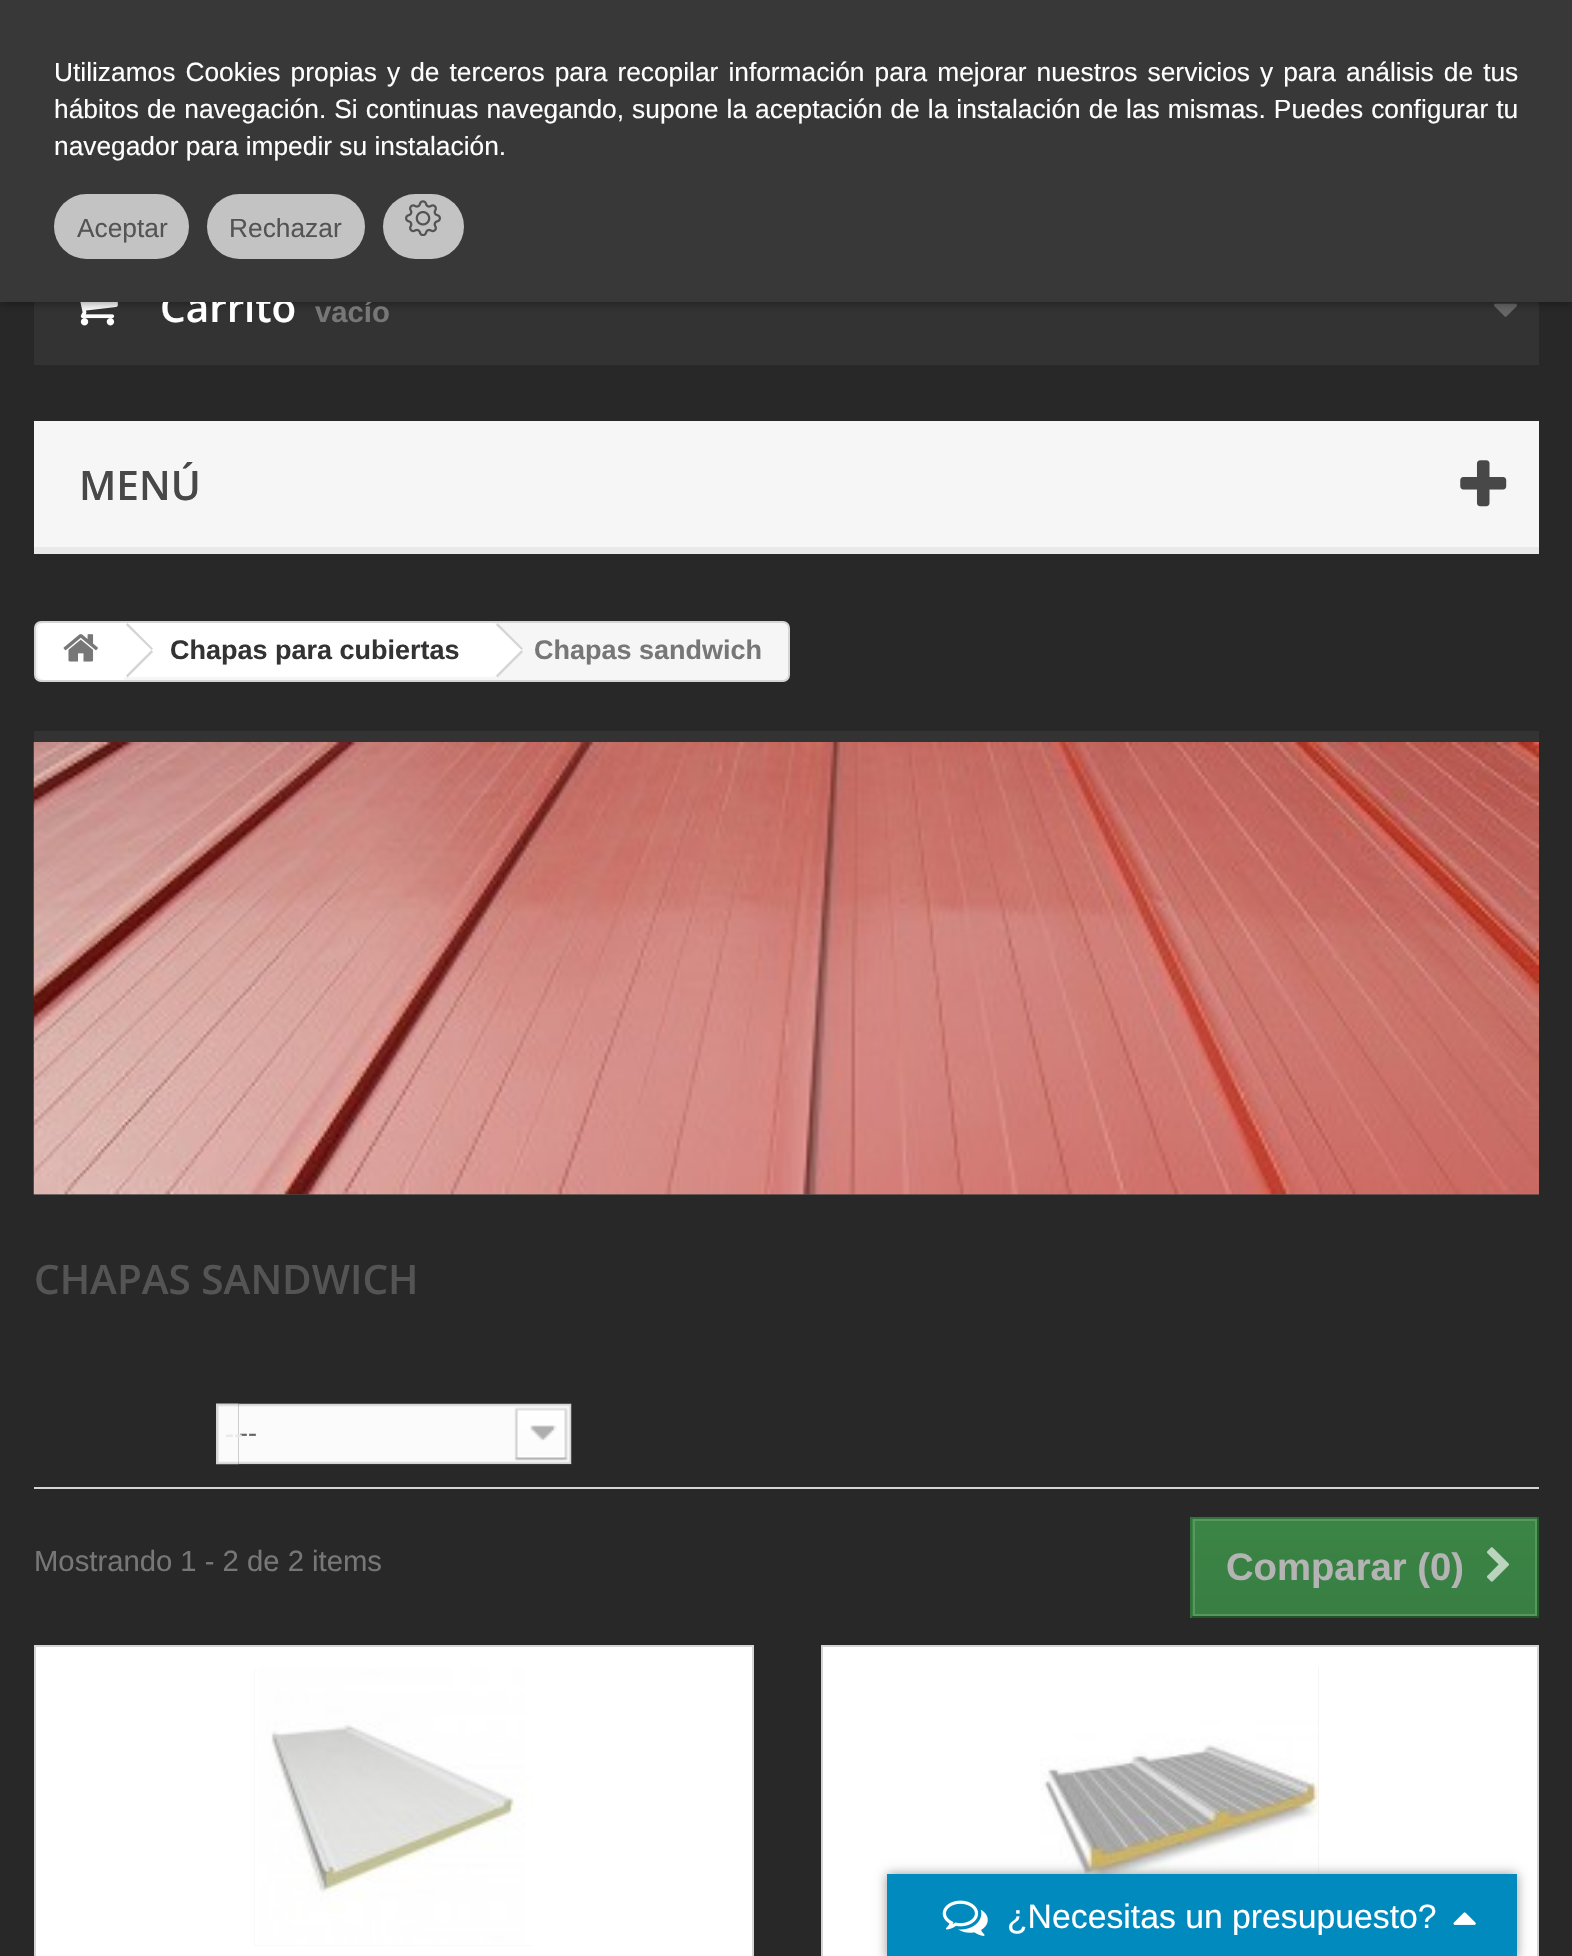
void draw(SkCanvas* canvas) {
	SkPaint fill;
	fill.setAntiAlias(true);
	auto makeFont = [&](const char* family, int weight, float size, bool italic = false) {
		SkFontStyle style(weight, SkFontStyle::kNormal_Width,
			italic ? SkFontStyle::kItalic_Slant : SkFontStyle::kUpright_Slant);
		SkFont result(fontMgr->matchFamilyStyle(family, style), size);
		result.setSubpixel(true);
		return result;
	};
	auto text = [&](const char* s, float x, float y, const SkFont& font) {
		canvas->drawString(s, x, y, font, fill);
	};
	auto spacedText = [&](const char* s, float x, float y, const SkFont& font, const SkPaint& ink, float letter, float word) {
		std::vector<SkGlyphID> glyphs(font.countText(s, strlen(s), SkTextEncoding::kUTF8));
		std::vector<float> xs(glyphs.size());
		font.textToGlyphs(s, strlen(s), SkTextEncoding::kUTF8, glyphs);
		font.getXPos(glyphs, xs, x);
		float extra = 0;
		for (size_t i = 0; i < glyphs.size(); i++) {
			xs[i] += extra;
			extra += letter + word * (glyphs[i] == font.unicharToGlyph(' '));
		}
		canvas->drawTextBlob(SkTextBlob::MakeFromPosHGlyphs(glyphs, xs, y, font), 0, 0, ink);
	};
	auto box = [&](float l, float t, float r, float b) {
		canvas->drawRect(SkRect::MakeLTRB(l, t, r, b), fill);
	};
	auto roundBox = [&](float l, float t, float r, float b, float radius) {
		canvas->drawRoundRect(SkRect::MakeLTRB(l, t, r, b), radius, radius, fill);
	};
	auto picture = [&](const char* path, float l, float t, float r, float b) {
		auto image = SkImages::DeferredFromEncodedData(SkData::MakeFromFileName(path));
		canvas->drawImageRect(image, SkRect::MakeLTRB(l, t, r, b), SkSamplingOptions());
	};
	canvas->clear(0xFF282828);
	fill.setColor(0xFF333333);
	box(34, 302, 1539, 365);
	picture("image1.png", 80, 302, 118, 326);
	picture("image2.png", 1494, 303, 1517, 317);
	fill.setColor(0x80000000);
	fill.setMaskFilter(SkMaskFilter::MakeBlur(kNormal_SkBlurStyle, 5.5f));
	canvas->drawRect(SkRect::MakeLTRB(0, 0, 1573, 302), fill);
	fill.setMaskFilter(nullptr);
	fill.setColor(0xFFF6F6F6);
	box(34, 421, 1539, 547);
	fill.setColor(0xFFE9E9E9);
	box(34, 547, 1539, 554);
	picture("image3.png", 1460, 460, 1507, 507);
	fill.setColor(0xFFF6F6F6);
	canvas->drawRoundRect(SkRect::MakeLTRB(35, 622, 789, 681), 6, 6, fill);
	fill.setStyle(SkPaint::kStroke_Style);
	fill.setStrokeWidth(2);
	fill.setColor(0xFFD6D4D4);
	canvas->drawRoundRect(SkRect::MakeLTRB(35, 622, 789, 681), 6, 6, fill);
	fill.setStyle(SkPaint::kFill_Style);
	fill.setColor(0xFFFFFFFF);
	canvas->drawPath(SkPathBuilder().moveTo(45, 623).lineTo(124, 623).lineTo(124, 680).lineTo(45, 680).cubicTo(41, 680, 38, 677, 38, 673).lineTo(38, 630).cubicTo(38, 626, 41, 623, 45, 623).close().detach(), fill);
	picture("image4.png", 63, 634, 98, 662);
	box(124, 623, 493, 677);
	fill.setColor(0xFFD6D4D4);
	canvas->drawPath(SkPathBuilder().moveTo(127.5f, 623).lineTo(153, 648.5f).lineTo(151.5f, 650).lineTo(126, 625).close().moveTo(151.5f, 650).lineTo(153, 652).lineTo(127.5f, 677.5f).lineTo(126, 675.5f).close().detach(), fill);
	fill.setColor(0xFFFFFFFF);
	canvas->drawPath(SkPathBuilder().moveTo(499, 625).lineTo(521, 647).cubicTo(523, 649, 523, 652, 521, 653).lineTo(499, 676).cubicTo(497, 677, 494, 677, 493, 676).lineTo(470, 653).cubicTo(469, 652, 469, 649, 470, 647).lineTo(493, 625).cubicTo(494, 623, 497, 623, 499, 625).close().detach(), fill);
	fill.setColor(0xFFD6D4D4);
	canvas->drawPath(SkPathBuilder().moveTo(497.5f, 623).lineTo(523, 648.5f).lineTo(521.5f, 650).lineTo(496, 625).close().moveTo(521.5f, 650).lineTo(523, 652).lineTo(497.5f, 677.5f).lineTo(496, 675.5f).close().detach(), fill);
	fill.setColor(0xFF333333);
	box(34, 731, 1539, 742);
	fill.setColor(0xFF464646);
	box(34, 1194, 1539, 1195);
	picture("image5.png", 33, 742, 1539, 1195);
	fill.setColor(0xFFD6D4D4);
	box(34, 1487, 1539, 1489);
	picture("image6.png", 216, 1403, 240, 1465);
	picture("image7.png", 238, 1403, 572, 1465);
	{
		const SkColor colors[] = {0xFF3A8545, 0xFF397E43};
		const float stops[] = {0, 1};
		const SkPoint ends[] = {{1365, 1519}, {1365, 1616}};
		fill.setShader(SkGradientShader::MakeLinear(ends, colors, stops, 2, SkTileMode::kClamp));
		fill.setAlpha(255);
	}
	box(1192, 1519, 1535, 1616);
	fill.setShader(nullptr);
	fill.setColor(0xFF33723D);
	box(1190, 1517, 1539, 1519);
	fill.setColor(0xFF25612F);
	box(1537, 1517, 1539, 1618);
	fill.setColor(0xFF1F5527);
	box(1190, 1616, 1539, 1618);
	fill.setColor(0xFF33723D);
	box(1190, 1517, 1192, 1618);
	fill.setStyle(SkPaint::kStroke_Style);
	fill.setColor(0xFF59985C);
	canvas->drawRect(SkRect::MakeLTRB(1194, 1520, 1536, 1615), fill);
	picture("image8.png", 1487, 1547, 1509, 1582);
	fill.setStyle(SkPaint::kFill_Style);
	fill.setColor(0xFFFFFFFF);
	canvas->drawRect(SkRect::MakeLTRB(35, 1646, 753, 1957), fill);
	fill.setStyle(SkPaint::kStroke_Style);
	fill.setColor(0xFFD6D4D4);
	canvas->drawRect(SkRect::MakeLTRB(35, 1646, 753, 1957), fill);
	fill.setStyle(SkPaint::kFill_Style);
	fill.setColor(0xFFF1E8E3);
	box(254, 1667, 533, 1946);
	picture("image9.png", 254, 1667, 533, 1946);
	fill.setColor(0xFFFFFFFF);
	canvas->drawRect(SkRect::MakeLTRB(822, 1646, 1538, 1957), fill);
	fill.setStyle(SkPaint::kStroke_Style);
	fill.setColor(0xFFD6D4D4);
	canvas->drawRect(SkRect::MakeLTRB(822, 1646, 1538, 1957), fill);
	fill.setStyle(SkPaint::kFill_Style);
	fill.setColor(0xFFF1E8E3);
	box(1318, 1667, 1319, 1874);
	picture("image10.png", 1040, 1667, 1319, 1874);
	fill.setColor(0xFF999999);
	fill.setMaskFilter(SkMaskFilter::MakeBlur(kNormal_SkBlurStyle, 5.5f));
	canvas->drawRect(SkRect::MakeLTRB(887, 1874, 1517, 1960), fill);
	fill.setMaskFilter(nullptr);
	fill.setColor(0xFF008ABD);
	box(887, 1874, 1517, 1956);
	picture("image11.png", 942, 1900, 988, 1936);
	picture("image12.png", 1453, 1912, 1476, 1925);
	auto font1 = makeFont("Open Sans", 600, 40.5f);
	fill.setColor(0xFFFFFFFF);
	text("Carrito", 160, 322, font1);
	auto font2 = makeFont("Liberation Sans", 700, 29.25f);
	fill.setColor(0xFF777777);
	text("vacío", 315, 322, font2);
	fill.setColor(0xFF383838);
	box(0, 0, 1572, 302);
	fill.setColor(0xFFC3C3C3);
	roundBox(383, 194, 464, 259, 32.5f);
	picture("image0.png", 405, 200, 441, 236);
	roundBox(207, 194, 365, 259, 32.5f);
	auto font3 = makeFont("Liberation Sans", 400, 26.32f);
	fill.setColor(0xFF555454);
	text("Rechazar", 229, 237, font3);
	fill.setColor(0xFFC3C3C3);
	roundBox(54, 194, 189, 259, 32.5f);
	fill.setColor(0xFF555454);
	text("Aceptar", 77, 237, font3);
	fill.setColor(0xFFFFFFFF);
	text("navegador para impedir su instalación.", 54, 155, font3);
	spacedText("hábitos de navegación. Si continuas navegando, supone la aceptación de la instalación de las mismas. Puedes configurar tu", 54, 118, font3, fill, 0, 0.75f);
	spacedText("Utilizamos Cookies propias y de terceros para recopilar información para mejorar nuestros servicios y para análisis de tus", 54, 81, font3, fill, 0, 2.75f);
	fill.setColor(0xFF484848);
	text("MENÚ", 79, 500, font1);
	auto font4 = makeFont("Liberation Sans", 700, 27);
	fill.setColor(0xFF333333);
	text("Chapas para cubiertas", 170, 659, font4);
	fill.setColor(0xFF777777);
	text("Chapas sandwich", 534, 659, font4);
	fill.setColor(0xFF555454);
	text("CHAPAS SANDWICH", 34, 1294, font1);
	auto font5 = makeFont("Liberation Sans", 400, 27);
	fill.setColor(0xFF666666);
	text("--", 239, 1442, font5);
	fill.setColor(0xFFE9E9E9);
	text("--", 225, 1443, font5);
	auto font6 = makeFont("Liberation Sans", 400, 29.25f);
	fill.setColor(0xFF777777);
	text("Mostrando 1 - 2 de 2 items", 34, 1571, font6);
	auto font7 = makeFont("Liberation Sans", 700, 38.25f);
	fill.setColor(0xFFB4B4B4);
	text("Comparar (0)", 1226, 1580, font7);
	auto font8 = makeFont("Liberation Sans", 400, 33.75f);
	fill.setColor(0xFFFFFFFF);
	text("¿Necesitas un presupuesto?", 1007, 1928, font8);
}
